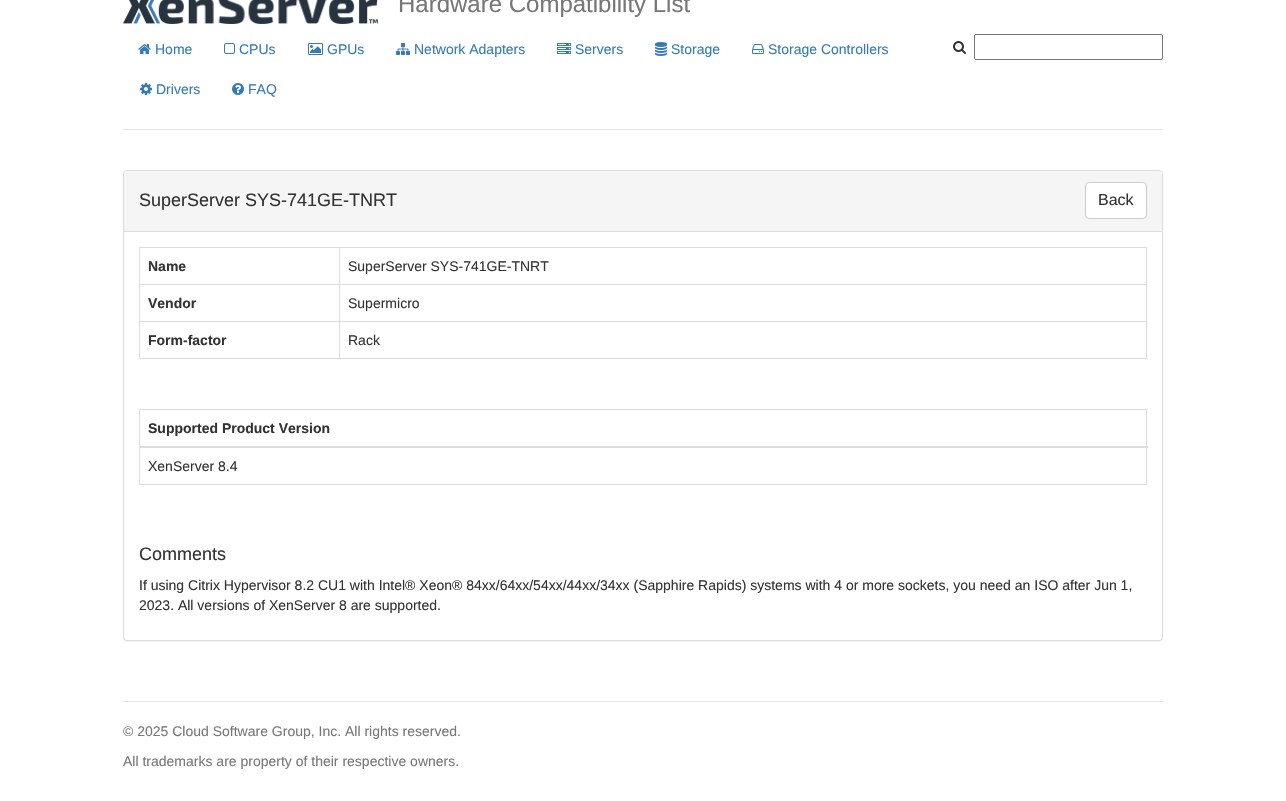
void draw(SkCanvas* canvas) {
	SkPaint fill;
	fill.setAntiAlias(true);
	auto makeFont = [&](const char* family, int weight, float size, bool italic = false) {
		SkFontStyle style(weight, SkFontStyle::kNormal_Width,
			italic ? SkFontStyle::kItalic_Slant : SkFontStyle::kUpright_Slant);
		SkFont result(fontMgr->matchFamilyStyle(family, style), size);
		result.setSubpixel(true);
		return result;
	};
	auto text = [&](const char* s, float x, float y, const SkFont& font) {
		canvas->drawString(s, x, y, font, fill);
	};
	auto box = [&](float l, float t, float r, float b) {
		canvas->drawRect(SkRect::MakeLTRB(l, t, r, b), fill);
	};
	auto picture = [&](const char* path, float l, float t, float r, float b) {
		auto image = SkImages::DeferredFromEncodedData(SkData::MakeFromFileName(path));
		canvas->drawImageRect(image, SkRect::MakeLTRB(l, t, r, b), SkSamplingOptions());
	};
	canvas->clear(0xFFFFFFFF);
	fill.setColor(0xFFE5E5E5);
	box(123, 129, 1163, 130);
	picture("image0.png", 123, 0, 378, 24);
	picture("image1.png", 138, 44, 151, 54);
	picture("image2.png", 224, 43, 235, 54);
	picture("image3.png", 308, 43, 323, 55);
	picture("image4.png", 396, 43, 410, 55);
	picture("image5.png", 557, 43, 571, 54);
	picture("image6.png", 655, 42, 667, 56);
	picture("image7.png", 752, 44, 764, 54);
	picture("image8.png", 140, 83, 152, 95);
	picture("image9.png", 232, 83, 244, 95);
	picture("image10.png", 953, 41, 966, 54);
	fill.setStyle(SkPaint::kStroke_Style);
	fill.setStrokeWidth(1);
	fill.setColor(0xFF767676);
	canvas->drawRoundRect(SkRect::MakeLTRB(974.5f, 34.5f, 1162.5f, 59.5f), 1.5f, 1.5f, fill);
	fill.setStyle(SkPaint::kFill_Style);
	fill.setColor(0x0D000000);
	fill.setMaskFilter(SkMaskFilter::MakeBlur(kNormal_SkBlurStyle, 0.5f));
	canvas->drawRoundRect(SkRect::MakeLTRB(123, 171, 1163, 642), 4, 4, fill);
	fill.setMaskFilter(nullptr);
	fill.setColor(0xFFFFFFFF);
	canvas->drawRoundRect(SkRect::MakeLTRB(123.5f, 170.5f, 1162.5f, 640.5f), 3.5f, 3.5f, fill);
	fill.setStyle(SkPaint::kStroke_Style);
	fill.setColor(0xFFDDDDDD);
	canvas->drawRoundRect(SkRect::MakeLTRB(123.5f, 170.5f, 1162.5f, 640.5f), 3.5f, 3.5f, fill);
	fill.setStyle(SkPaint::kFill_Style);
	fill.setColor(0xFFF5F5F5);
	canvas->drawPath(SkPathBuilder().moveTo(127, 171).lineTo(1159, 171).cubicTo(1160.5f, 171, 1162, 172.5f, 1162, 174).lineTo(1162, 232).lineTo(124, 232).lineTo(124, 174).cubicTo(124, 172.5f, 125.5f, 171, 127, 171).close().detach(), fill);
	fill.setColor(0xFFDDDDDD);
	box(124, 231, 1162, 232);
	fill.setColor(0xFFFFFFFF);
	canvas->drawRoundRect(SkRect::MakeLTRB(1085.5f, 182.5f, 1146.5f, 218.5f), 3.5f, 3.5f, fill);
	fill.setStyle(SkPaint::kStroke_Style);
	fill.setColor(0xFFCCCCCC);
	canvas->drawRoundRect(SkRect::MakeLTRB(1085.5f, 182.5f, 1146.5f, 218.5f), 3.5f, 3.5f, fill);
	fill.setStyle(SkPaint::kFill_Style);
	fill.setColor(0xFFDDDDDD);
	box(139, 247, 1147, 248);
	box(1146, 247, 1147, 359);
	box(139, 358, 1147, 359);
	box(139, 247, 140, 359);
	box(339, 284, 1147, 285);
	box(339, 321, 1147, 322);
	box(339, 321, 340, 359);
	box(139, 321, 340, 322);
	box(339, 284, 340, 322);
	box(139, 284, 340, 285);
	box(339, 247, 340, 285);
	box(139, 409, 1147, 410);
	box(1146, 409, 1147, 485);
	box(139, 484, 1147, 485);
	box(139, 409, 140, 485);
	box(139, 446, 1148, 448);
	fill.setColor(0xFFE5E5E5);
	box(123, 701, 1163, 702);
	auto font1 = makeFont("Liberation Sans", 400, 24);
	fill.setColor(0xFF777777);
	text("Hardware Compatibility List", 398, 12, font1);
	auto font2 = makeFont("Liberation Sans", 400, 14);
	fill.setColor(0xFF337AB7);
	text("Home", 155, 54, font2);
	text("CPUs", 239, 54, font2);
	text("GPUs", 327, 54, font2);
	text("Network Adapters", 414, 54, font2);
	text("Servers", 575, 54, font2);
	text("Storage", 671, 54, font2);
	text("Storage Controllers", 768, 54, font2);
	text("Drivers", 156, 94, font2);
	text("FAQ", 248, 94, font2);
	auto font3 = makeFont("Liberation Sans", 400, 18);
	fill.setColor(0xFF333333);
	text("SuperServer SYS-741GE-TNRT", 139, 206, font3);
	auto font4 = makeFont("Liberation Sans", 400, 16);
	text("Back", 1098, 205, font4);
	auto font5 = makeFont("Liberation Sans", 700, 14);
	text("Name", 148, 271, font5);
	text("SuperServer SYS-741GE-TNRT", 348, 271, font2);
	text("Vendor", 148, 308, font5);
	text("Supermicro", 348, 308, font2);
	text("Form-factor", 148, 345, font5);
	text("Rack", 348, 345, font2);
	text("Supported Product Version", 148, 433, font5);
	text("XenServer 8.4", 148, 471, font2);
	text("Comments", 139, 560, font3);
	text("If using Citrix Hypervisor 8.2 CU1 with Intel® Xeon® 84xx/64xx/54xx/44xx/34xx (Sapphire Rapids) systems with 4 or more sockets, you need an ISO after Jun 1,", 139, 590, font2);
	text("2023. All versions of XenServer 8 are supported.", 139, 610, font2);
	fill.setColor(0xFF777777);
	text("© 2025 Cloud Software Group, Inc. All rights reserved.", 123, 736, font2);
	text("All trademarks are property of their respective owners.", 123, 766, font2);
}
